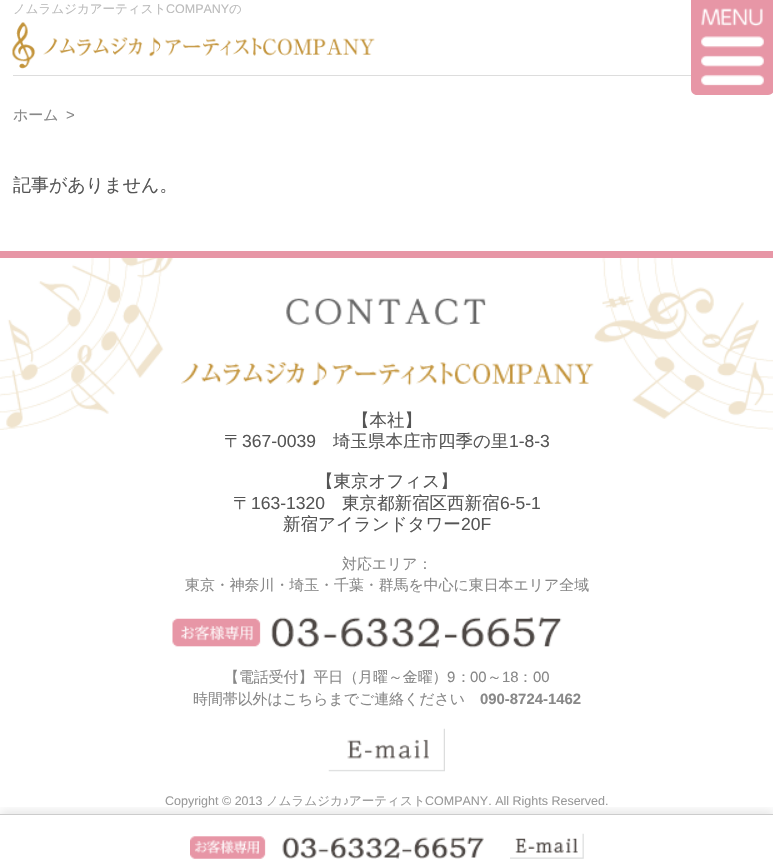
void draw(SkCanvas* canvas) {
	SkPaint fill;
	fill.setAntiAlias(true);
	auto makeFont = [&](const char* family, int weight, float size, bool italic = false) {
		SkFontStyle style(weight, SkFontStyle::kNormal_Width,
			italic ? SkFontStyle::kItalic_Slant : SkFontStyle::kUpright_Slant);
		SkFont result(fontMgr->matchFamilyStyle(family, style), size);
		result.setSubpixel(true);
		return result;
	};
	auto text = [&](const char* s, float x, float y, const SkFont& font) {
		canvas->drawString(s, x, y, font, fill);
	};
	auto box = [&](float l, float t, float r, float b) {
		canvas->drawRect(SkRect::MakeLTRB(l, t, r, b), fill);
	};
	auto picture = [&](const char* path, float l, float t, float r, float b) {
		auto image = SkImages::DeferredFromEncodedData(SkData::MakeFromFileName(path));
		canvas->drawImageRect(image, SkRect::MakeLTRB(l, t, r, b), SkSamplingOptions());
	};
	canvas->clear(0xFFFFFFFF);
	picture("image0.png", 12, 22, 375, 69);
	canvas->save();
	canvas->clipRect(SkRect::MakeLTRB(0, 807, 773, 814));
	fill.setColor(0x1A000000);
	fill.setMaskFilter(SkMaskFilter::MakeBlur(kNormal_SkBlurStyle, 5));
	canvas->drawRect(SkRect::MakeLTRB(0, 811, 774, 858), fill);
	fill.setMaskFilter(nullptr);
	canvas->restore();
	fill.setColor(0xFFCCCCCC);
	box(0, 814, 773, 815);
	picture("image1.png", 190, 836, 484, 859);
	picture("image2.png", 510, 833, 584, 859);
	fill.setColor(0xFFE796A6);
	canvas->drawPath(SkPathBuilder().moveTo(691, -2).lineTo(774, -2).lineTo(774, 89).cubicTo(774, 92.5f, 771.5f, 95, 768, 95).lineTo(697, 95).cubicTo(693.5f, 95, 691, 92.5f, 691, 89).close().detach(), fill);
	picture("image3.png", 701, 8, 764, 86);
	fill.setColor(0xFFDDDDDD);
	box(13, 75, 691, 76);
	picture("image4.png", 0, 258, 773, 430);
	fill.setColor(0xFFE796A6);
	box(0, 251, 773, 258);
	picture("image5.png", 181, 298, 594, 386);
	picture("image6.png", 172, 617, 562, 648);
	picture("image7.png", 328, 728, 445, 772);
	auto font1 = makeFont("WenQuanYi Zen Hei", 500, 12.5f);
	fill.setColor(0xFFBBBBBB);
	text("ノムラムジカアーティスト", 13, 13, font1);
	auto font2 = makeFont("Liberation Sans", 400, 12.5f);
	text("COMPANY", 166, 13, font2);
	text("の", 229, 13, font1);
	auto font3 = makeFont("WenQuanYi Zen Hei", 500, 15);
	fill.setColor(0xFF888888);
	text("ホーム", 13, 120, font3);
	auto font4 = makeFont("Liberation Sans", 400, 15);
	text(">", 66, 120, font4);
	auto font5 = makeFont("WenQuanYi Zen Hei", 500, 18);
	fill.setColor(0xFF555555);
	text("記事がありません。", 13, 191, font5);
	auto font6 = makeFont("WenQuanYi Zen Hei", 500, 17.5f);
	text("【本社】", 352, 426, font6);
	text("〒", 224, 447, font6);
	auto font7 = makeFont("Liberation Sans", 400, 17.5f);
	text("367-0039", 242, 447, font7);
	text("埼玉県本庄市四季の里", 333, 447, font6);
	text("1-8-3", 509, 447, font7);
	text("【東京オフィス】", 316, 487, font6);
	text("〒", 233, 509, font6);
	text("163-1320", 251, 509, font7);
	text("東京都新宿区西新宿", 342, 509, font6);
	text("6-5-1", 500, 509, font7);
	text("新宿アイランドタワー", 283, 530, font6);
	text("20F", 461, 530, font7);
	auto font8 = makeFont("WenQuanYi Zen Hei", 500, 14.9f);
	fill.setColor(0xFF888888);
	text("対応エリア：", 342, 569, font8);
	text("東京・神奈川・埼玉・千葉・群馬を中心に東日本エリア全域", 185, 590, font8);
	text("【電話受付】平日（月曜～金曜）", 224, 682, font8);
	auto font9 = makeFont("Liberation Sans", 400, 14.9f);
	text("9", 447, 682, font9);
	text("：", 456, 682, font8);
	text("00", 470, 682, font9);
	text("～", 487, 682, font8);
	text("18", 502, 682, font9);
	text("：", 518, 682, font8);
	text("00", 533, 682, font9);
	text("時間帯以外はこちらまでご連絡ください", 193, 704, font8);
	auto font10 = makeFont("Liberation Sans", 700, 14.9f);
	text("090-8724-1462", 480, 704, font10);
	fill.setColor(0xFF999999);
	text("Copyright © 2013", 165, 805, font2);
	text("ノムラムジカ", 266, 805, font1);
	text("♪", 343, 805, font2);
	text("アーティスト", 349, 805, font1);
	text("COMPANY. All Rights Reserved.", 425, 805, font2);
}
